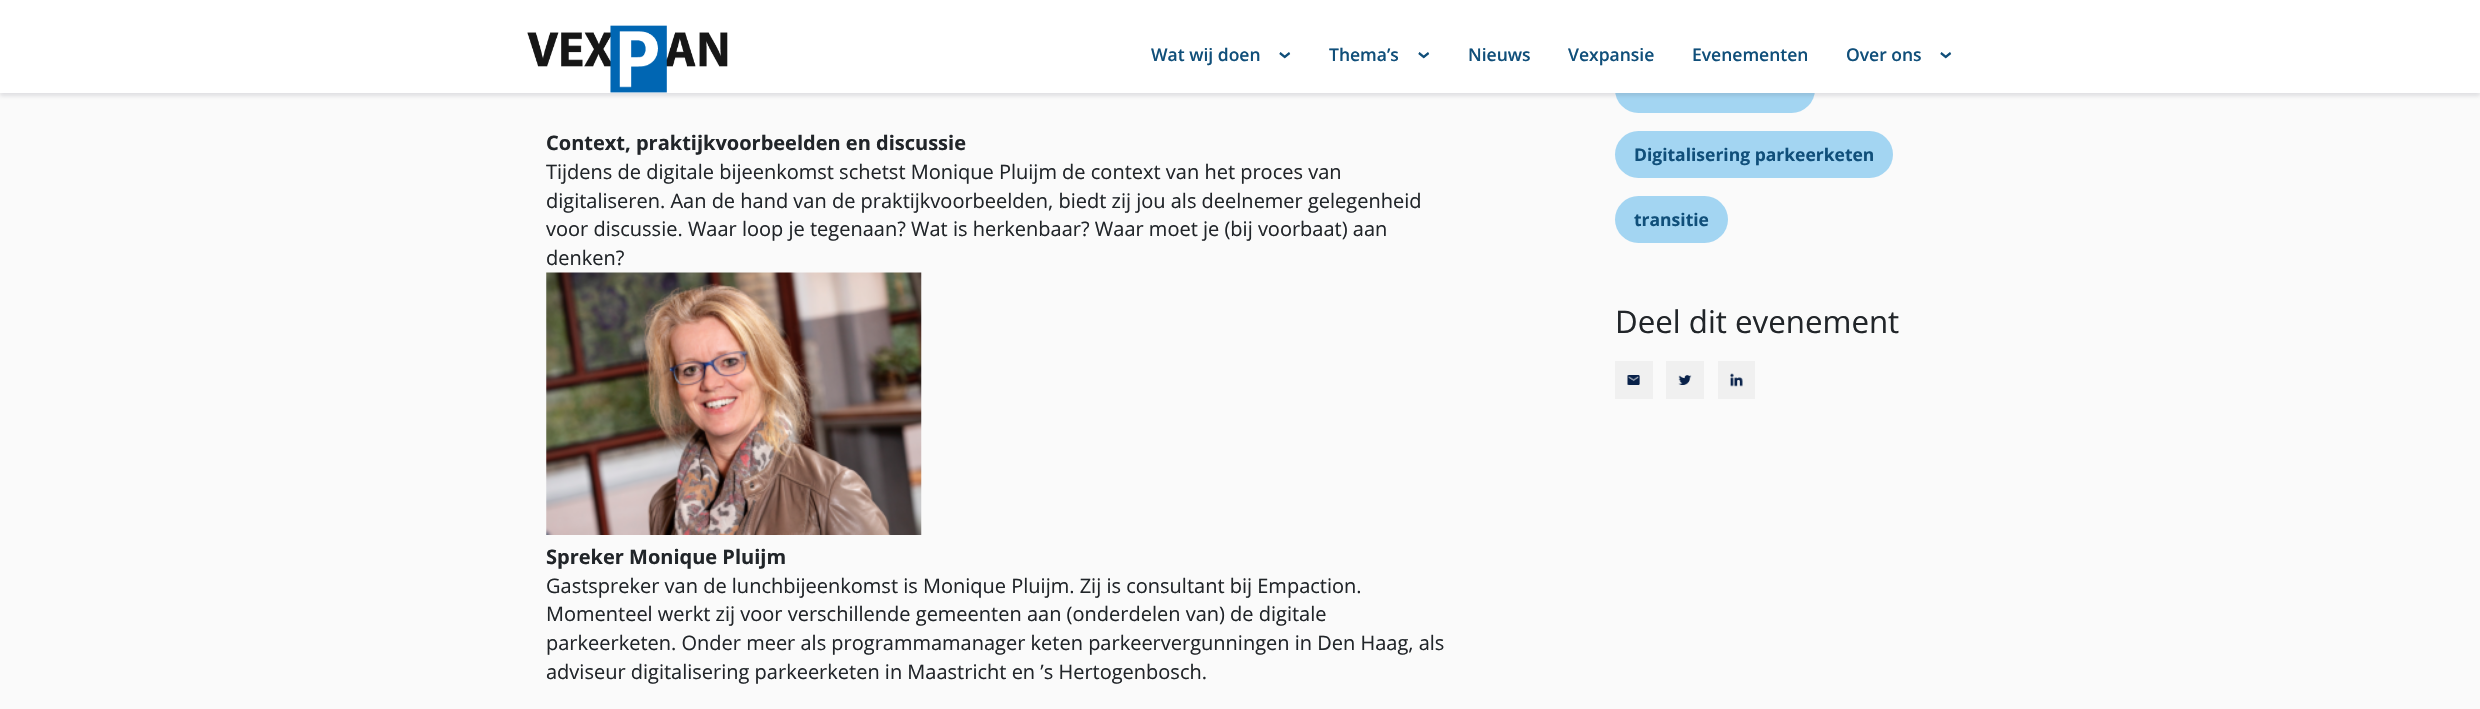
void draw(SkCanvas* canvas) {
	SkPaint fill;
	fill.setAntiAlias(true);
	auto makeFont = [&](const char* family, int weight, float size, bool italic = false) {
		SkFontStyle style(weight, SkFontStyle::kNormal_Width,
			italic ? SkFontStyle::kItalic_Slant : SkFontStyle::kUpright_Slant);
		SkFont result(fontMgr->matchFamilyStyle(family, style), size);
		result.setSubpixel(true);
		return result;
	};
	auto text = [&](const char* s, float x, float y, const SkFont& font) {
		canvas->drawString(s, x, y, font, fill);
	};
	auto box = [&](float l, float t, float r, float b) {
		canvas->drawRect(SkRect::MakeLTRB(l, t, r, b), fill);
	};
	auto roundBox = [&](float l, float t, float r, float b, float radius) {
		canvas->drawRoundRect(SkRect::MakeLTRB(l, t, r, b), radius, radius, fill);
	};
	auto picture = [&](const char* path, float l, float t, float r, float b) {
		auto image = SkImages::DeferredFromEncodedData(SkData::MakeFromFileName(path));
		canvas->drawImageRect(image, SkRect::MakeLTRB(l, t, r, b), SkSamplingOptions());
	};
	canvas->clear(0xFFFAFAFA);
	fill.setColor(0xFFA3D5F2);
	roundBox(1615, 66, 1815, 113, 23.5f);
	fill.setColor(0x26454358);
	fill.setMaskFilter(SkMaskFilter::MakeBlur(kNormal_SkBlurStyle, 2));
	canvas->drawRect(SkRect::MakeLTRB(0, 4, 2480, 96), fill);
	fill.setMaskFilter(nullptr);
	fill.setColor(0xFFFFFFFF);
	box(0, 0, 2480, 93);
	picture("image0.png", 527, 25, 728, 93);
	picture("image1.png", 546, 272, 922, 535);
	fill.setColor(0xFFA3D5F2);
	roundBox(1615, 131, 1893, 178, 23.5f);
	roundBox(1615, 196, 1728, 243, 23.5f);
	fill.setColor(0xFFF0F0F0);
	box(1615, 361, 1653, 399);
	picture("image2.png", 1627, 375, 1640, 385);
	box(1666, 361, 1704, 399);
	picture("image3.png", 1678, 375, 1692, 385);
	box(1718, 361, 1755, 399);
	picture("image4.png", 1730, 373, 1743, 387);
	auto font1 = makeFont("Open Sans", 600, 17.5f);
	fill.setColor(0xFF104F7A);
	text("Wat wij doen", 1151, 61, font1);
	auto font2 = makeFont("Open Sans", 600, 25);
	canvas->save();
	canvas->rotate(90, 1278, 51);
	text("›", 1278, 51, font2);
	canvas->restore();
	text("Thema’s", 1329, 61, font1);
	canvas->save();
	canvas->rotate(90, 1417, 51);
	text("›", 1417, 51, font2);
	canvas->restore();
	text("Nieuws", 1468, 61, font1);
	text("Vexpansie", 1568, 61, font1);
	text("Evenementen", 1692, 61, font1);
	text("Over ons", 1846, 61, font1);
	canvas->save();
	canvas->rotate(90, 1939, 51);
	text("›", 1939, 51, font2);
	canvas->restore();
	auto font3 = makeFont("Open Sans", 700, 20);
	fill.setColor(0xFF212529);
	text("Context, praktijkvoorbeelden en discussie", 546, 150, font3);
	auto font4 = makeFont("Open Sans", 400, 20);
	text("Tijdens de digitale bijeenkomst schetst Monique Pluijm de context van het proces van", 546, 179, font4);
	text("digitaliseren. Aan de hand van de praktijkvoorbeelden, biedt zij jou als deelnemer gelegenheid", 546, 208, font4);
	text("voor discussie. Waar loop je tegenaan? Wat is herkenbaar? Waar moet je (bij voorbaat) aan", 546, 236, font4);
	text("denken?", 546, 265, font4);
	text("Spreker Monique Pluijm", 546, 564, font3);
	text("Gastspreker van de lunchbijeenkomst is Monique Pluijm. Zij is consultant bij Empaction.", 546, 593, font4);
	text("Momenteel werkt zij voor verschillende gemeenten aan (onderdelen van) de digitale", 546, 621, font4);
	text("parkeerketen. Onder meer als programmamanager keten parkeervergunningen in Den Haag, als", 546, 650, font4);
	text("adviseur digitalisering parkeerketen in Maastricht en ’s Hertogenbosch.", 546, 679, font4);
	auto font5 = makeFont("Open Sans", 700, 17.5f);
	fill.setColor(0xFF104F7A);
	text("Digitalisering parkeerketen", 1634, 161, font5);
	text("transitie", 1634, 226, font5);
	auto font6 = makeFont("Open Sans", 400, 31.25f);
	fill.setColor(0xFF212529);
	text("Deel dit evenement", 1615, 333, font6);
}
